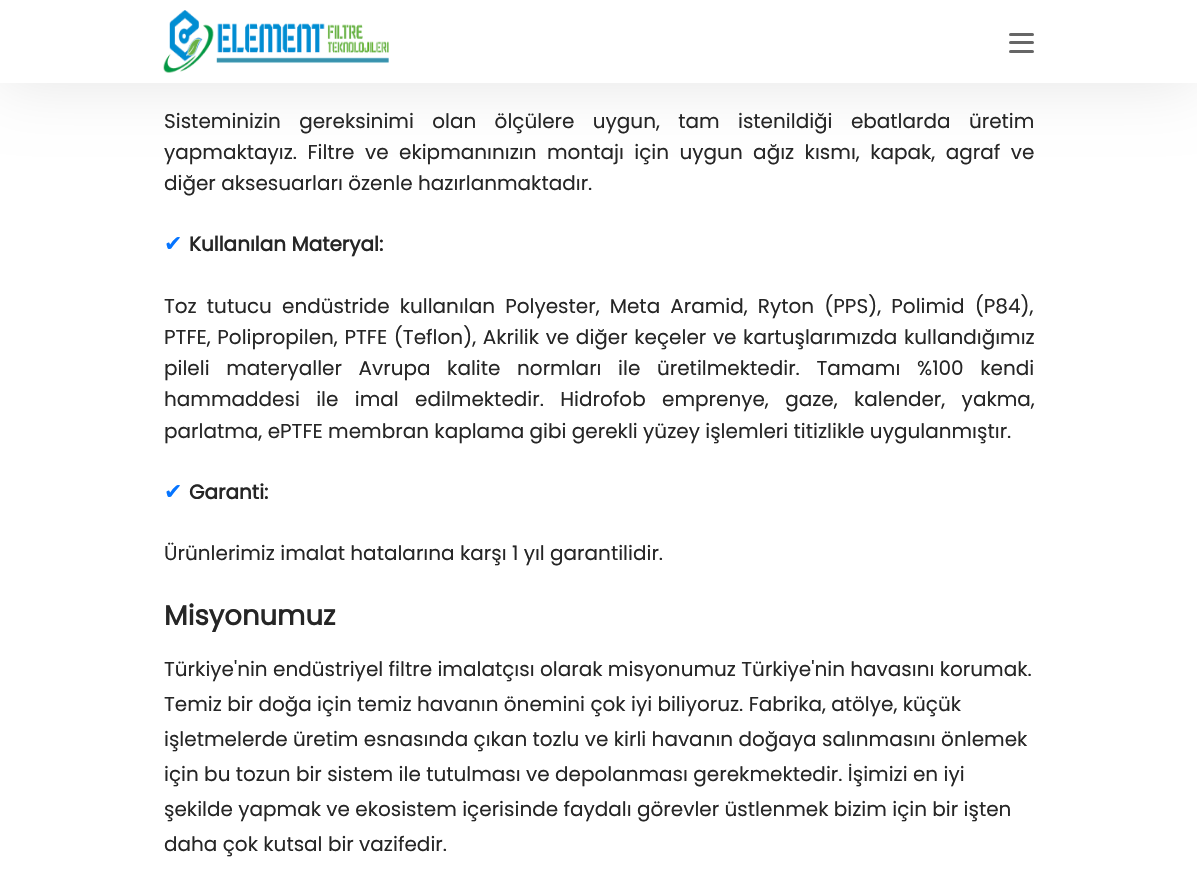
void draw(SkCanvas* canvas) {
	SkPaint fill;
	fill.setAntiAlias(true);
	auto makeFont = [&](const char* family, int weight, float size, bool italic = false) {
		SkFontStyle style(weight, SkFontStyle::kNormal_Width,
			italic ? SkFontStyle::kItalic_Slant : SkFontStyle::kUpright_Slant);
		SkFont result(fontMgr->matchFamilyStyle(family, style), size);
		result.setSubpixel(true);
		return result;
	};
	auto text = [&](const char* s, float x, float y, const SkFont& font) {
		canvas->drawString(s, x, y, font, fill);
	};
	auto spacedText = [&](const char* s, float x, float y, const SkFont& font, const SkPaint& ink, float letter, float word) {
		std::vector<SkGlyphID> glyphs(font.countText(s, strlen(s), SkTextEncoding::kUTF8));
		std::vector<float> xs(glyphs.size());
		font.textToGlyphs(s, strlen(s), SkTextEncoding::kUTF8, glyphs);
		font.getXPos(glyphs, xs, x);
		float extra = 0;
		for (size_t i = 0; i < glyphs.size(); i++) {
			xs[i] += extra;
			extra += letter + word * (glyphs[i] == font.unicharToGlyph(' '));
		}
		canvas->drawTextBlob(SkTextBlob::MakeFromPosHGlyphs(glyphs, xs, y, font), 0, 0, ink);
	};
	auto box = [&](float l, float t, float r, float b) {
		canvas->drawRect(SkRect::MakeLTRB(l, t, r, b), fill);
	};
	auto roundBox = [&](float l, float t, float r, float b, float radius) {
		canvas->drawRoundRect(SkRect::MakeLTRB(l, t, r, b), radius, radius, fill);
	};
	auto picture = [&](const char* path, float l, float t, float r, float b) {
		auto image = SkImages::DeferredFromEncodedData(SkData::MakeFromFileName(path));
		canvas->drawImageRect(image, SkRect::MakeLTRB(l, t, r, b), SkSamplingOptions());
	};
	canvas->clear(0xFFFFFFFF);
	fill.setColor(0x1A000000);
	fill.setMaskFilter(SkMaskFilter::MakeBlur(kNormal_SkBlurStyle, 31));
	canvas->drawRect(SkRect::MakeLTRB(0, 0, 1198, 83), fill);
	fill.setMaskFilter(nullptr);
	fill.setColor(0xFFFFFFFF);
	box(0, 0, 1197, 83);
	picture("image0.png", 163, 10, 389, 73);
	fill.setColor(0xFF666666);
	roundBox(1009, 33, 1034, 36, 1.5f);
	roundBox(1009, 41, 1034, 44, 1.5f);
	roundBox(1009, 50, 1034, 53, 1.5f);
	auto font1 = makeFont("Poppins", 400, 20);
	fill.setColor(0xFF262626);
	spacedText("Sisteminizin gereksinimi olan ölçülere uygun, tam istenildiği ebatlarda üretim", 164, 128, font1, fill, 0, 13);
	spacedText("yapmaktayız. Filtre ve ekipmanınızın montajı için uygun ağız kısmı, kapak, agraf ve", 164, 159, font1, fill, 0, 5.1f);
	text("diğer aksesuarları özenle hazırlanmaktadır.", 164, 190, font1);
	auto font2 = makeFont("DejaVu Sans", 400, 22);
	fill.setColor(0xFF0574FF);
	text("✔", 164, 251, font2);
	auto font3 = makeFont("Poppins", 700, 20);
	fill.setColor(0xFF262626);
	text("Kullanılan Materyal:", 189, 251, font3);
	spacedText("Toz tutucu endüstride kullanılan Polyester, Meta Aramid, Ryton (PPS), Polimid (P84),", 164, 313, font1, fill, 0, 4.75f);
	spacedText("PTFE, Polipropilen, PTFE (Teflon), Akrilik ve diğer keçeler ve kartuşlarımızda kullandığımız", 164, 344, font1, fill, 0, 1.25f);
	spacedText("pileli materyaller Avrupa kalite normları ile üretilmektedir. Tamamı %100 kendi", 164, 375, font1, fill, 0, 11.25f);
	spacedText("hammaddesi ile imal edilmektedir. Hidrofob emprenye, gaze, kalender, yakma,", 164, 406, font1, fill, 0, 11);
	text("parlatma, ePTFE membran kaplama gibi gerekli yüzey işlemleri titizlikle uygulanmıştır.", 164, 438, font1);
	fill.setColor(0xFF0574FF);
	text("✔", 164, 499, font2);
	fill.setColor(0xFF262626);
	text("Garanti:", 189, 499, font3);
	text("Ürünlerimiz imalat hatalarına karşı 1 yıl garantilidir.", 164, 560, font1);
	auto font4 = makeFont("Poppins", 700, 27.5f);
	text("Misyonumuz", 164, 625, font4);
	text("Türkiye'nin endüstriyel filtre imalatçısı olarak misyonumuz Türkiye'nin havasını korumak.", 164, 676, font1);
	text("Temiz bir doğa için temiz havanın önemini çok iyi biliyoruz. Fabrika, atölye, küçük", 164, 711, font1);
	text("işletmelerde üretim esnasında çıkan tozlu ve kirli havanın doğaya salınmasını önlemek", 164, 746, font1);
	text("için bu tozun bir sistem ile tutulması ve depolanması gerekmektedir. İşimizi en iyi", 164, 781, font1);
	text("şekilde yapmak ve ekosistem içerisinde faydalı görevler üstlenmek bizim için bir işten", 164, 816, font1);
	text("daha çok kutsal bir vazifedir.", 164, 851, font1);
}
